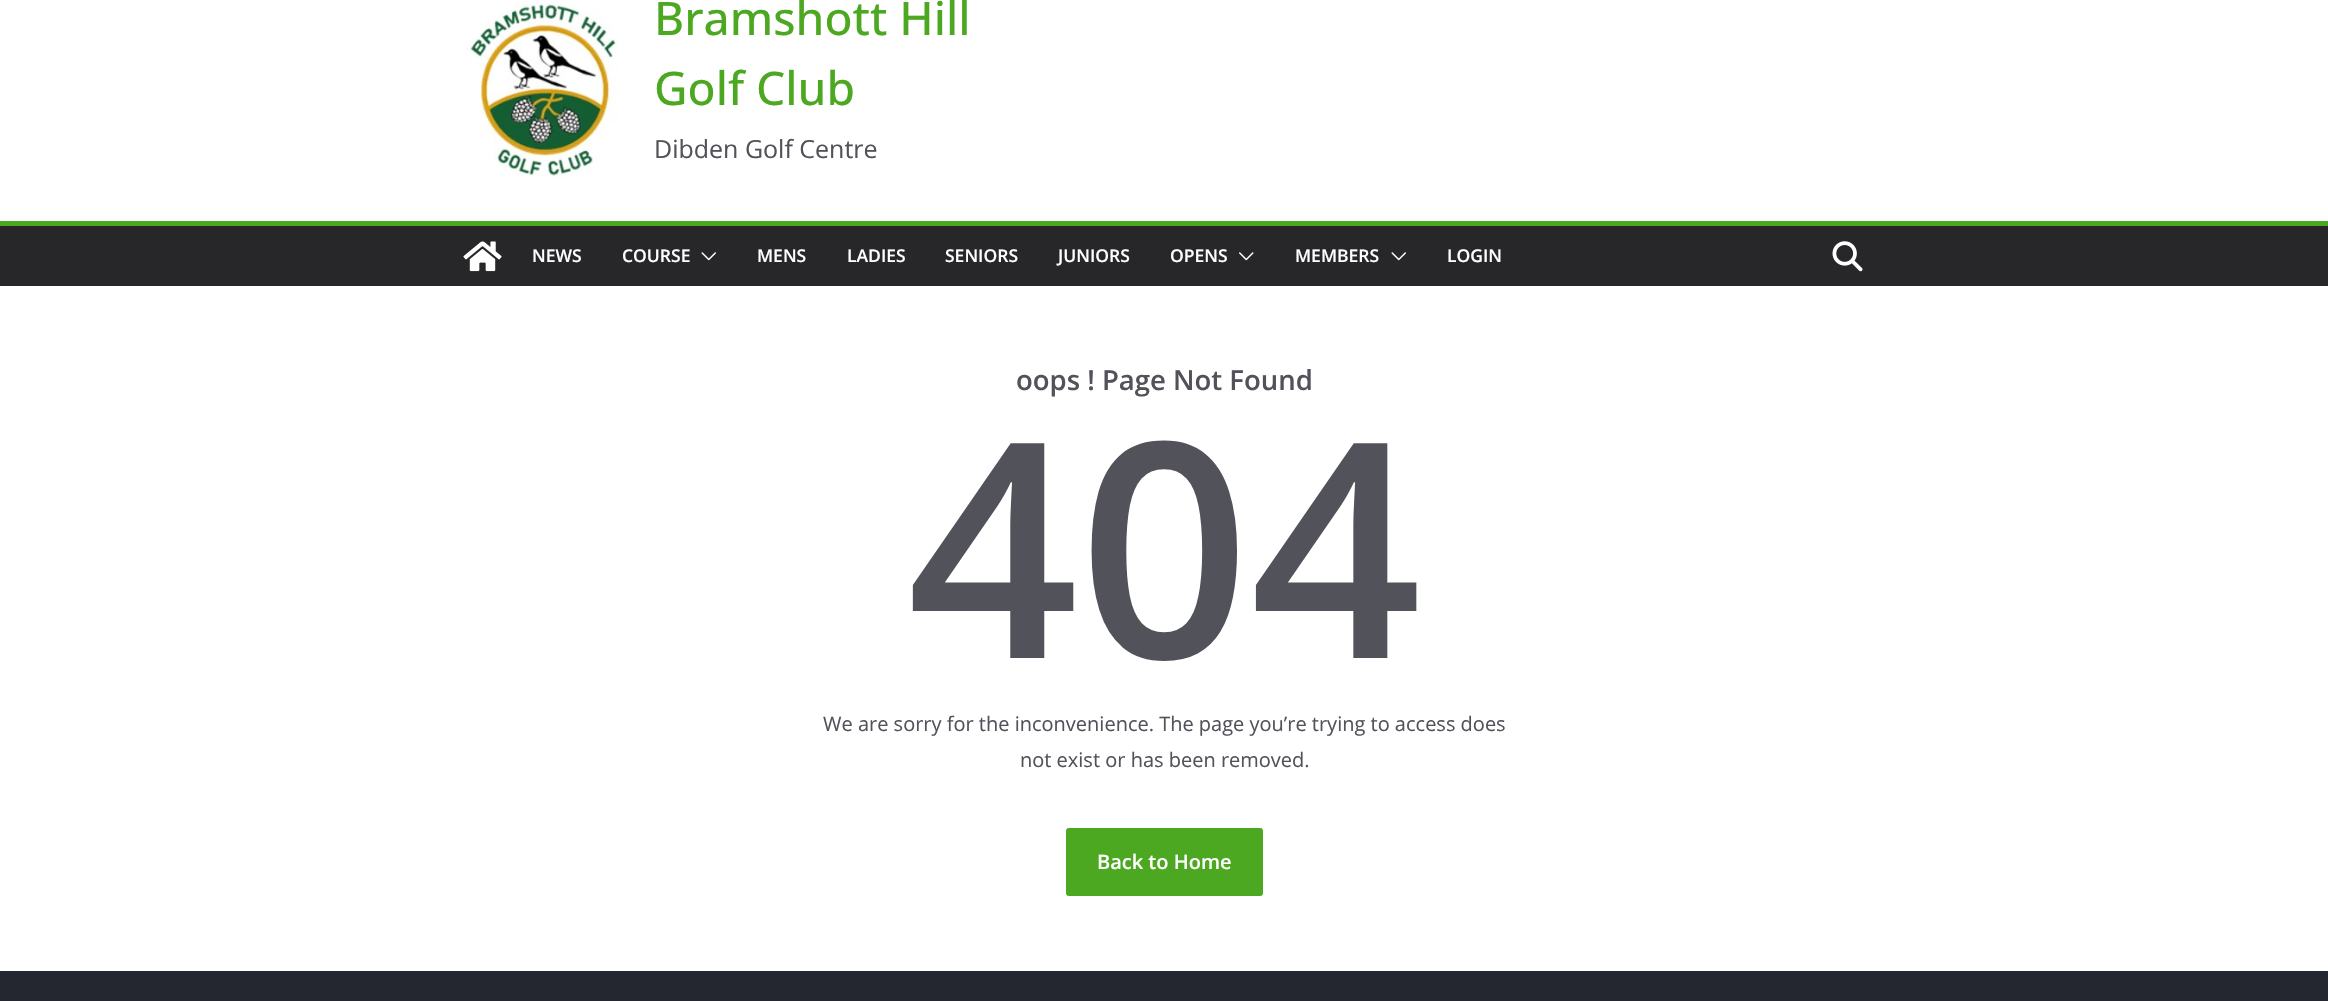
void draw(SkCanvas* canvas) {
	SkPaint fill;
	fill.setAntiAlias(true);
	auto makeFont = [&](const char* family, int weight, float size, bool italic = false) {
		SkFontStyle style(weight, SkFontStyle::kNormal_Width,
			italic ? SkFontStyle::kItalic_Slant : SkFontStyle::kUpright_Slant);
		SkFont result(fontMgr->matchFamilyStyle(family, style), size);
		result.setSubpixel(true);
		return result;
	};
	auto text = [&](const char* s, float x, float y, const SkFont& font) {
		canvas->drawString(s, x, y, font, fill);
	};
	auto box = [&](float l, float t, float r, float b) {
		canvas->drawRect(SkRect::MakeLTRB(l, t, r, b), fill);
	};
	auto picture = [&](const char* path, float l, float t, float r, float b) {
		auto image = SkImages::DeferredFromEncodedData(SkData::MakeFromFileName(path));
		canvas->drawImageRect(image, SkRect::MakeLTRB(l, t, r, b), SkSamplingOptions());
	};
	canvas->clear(0xFFFFFFFF);
	picture("image0.png", 466, 0, 618, 177);
	fill.setColor(0xFF27272A);
	box(0, 226, 2328, 286);
	fill.setColor(0xFF4CA821);
	box(0, 221, 2328, 226);
	picture("image1.png", 463, 241, 502, 272);
	picture("image2.png", 701, 252, 716, 261);
	picture("image3.png", 1239, 252, 1254, 261);
	picture("image2.png", 1391, 252, 1406, 261);
	picture("image4.png", 1832, 241, 1863, 272);
	canvas->drawRoundRect(SkRect::MakeLTRB(1066.5f, 828.5f, 1262.5f, 895.5f), 2, 2, fill);
	fill.setStyle(SkPaint::kStroke_Style);
	fill.setStrokeWidth(1);
	canvas->drawRoundRect(SkRect::MakeLTRB(1066.5f, 828.5f, 1262.5f, 895.5f), 2, 2, fill);
	fill.setStyle(SkPaint::kFill_Style);
	fill.setColor(0xFF252730);
	box(0, 971, 2328, 1001);
	auto font1 = makeFont("Open Sans", 500, 46.25f);
	fill.setColor(0xFF4CA821);
	text("Bramshott Hill", 654, 35, font1);
	text("Golf Club", 654, 105, font1);
	auto font2 = makeFont("Open Sans", 400, 25);
	fill.setColor(0xFF52525B);
	text("Dibden Golf Centre", 654, 158, font2);
	auto font3 = makeFont("Open Sans", 600, 17.5f);
	fill.setColor(0xFFFFFFFF);
	text("NEWS", 532, 262, font3);
	text("COURSE", 622, 262, font3);
	text("MENS", 757, 262, font3);
	text("LADIES", 847, 262, font3);
	text("SENIORS", 945, 262, font3);
	text("JUNIORS", 1058, 262, font3);
	text("OPENS", 1170, 262, font3);
	text("MEMBERS", 1295, 262, font3);
	text("LOGIN", 1447, 262, font3);
	auto font4 = makeFont("Open Sans", 600, 27.5f);
	fill.setColor(0xFF52525B);
	text("oops ! Page Not Found", 1016, 390, font4);
	auto font5 = makeFont("Open Sans", 600, 300);
	text("404", 907, 658, font5);
	auto font6 = makeFont("Open Sans", 400, 20);
	text("We are sorry for the inconvenience. The page you’re trying to access does", 823, 731, font6);
	text("not exist or has been removed.", 1020, 767, font6);
	auto font7 = makeFont("Open Sans", 600, 20);
	fill.setColor(0xFFFFFFFF);
	text("Back to Home", 1097, 869, font7);
}
